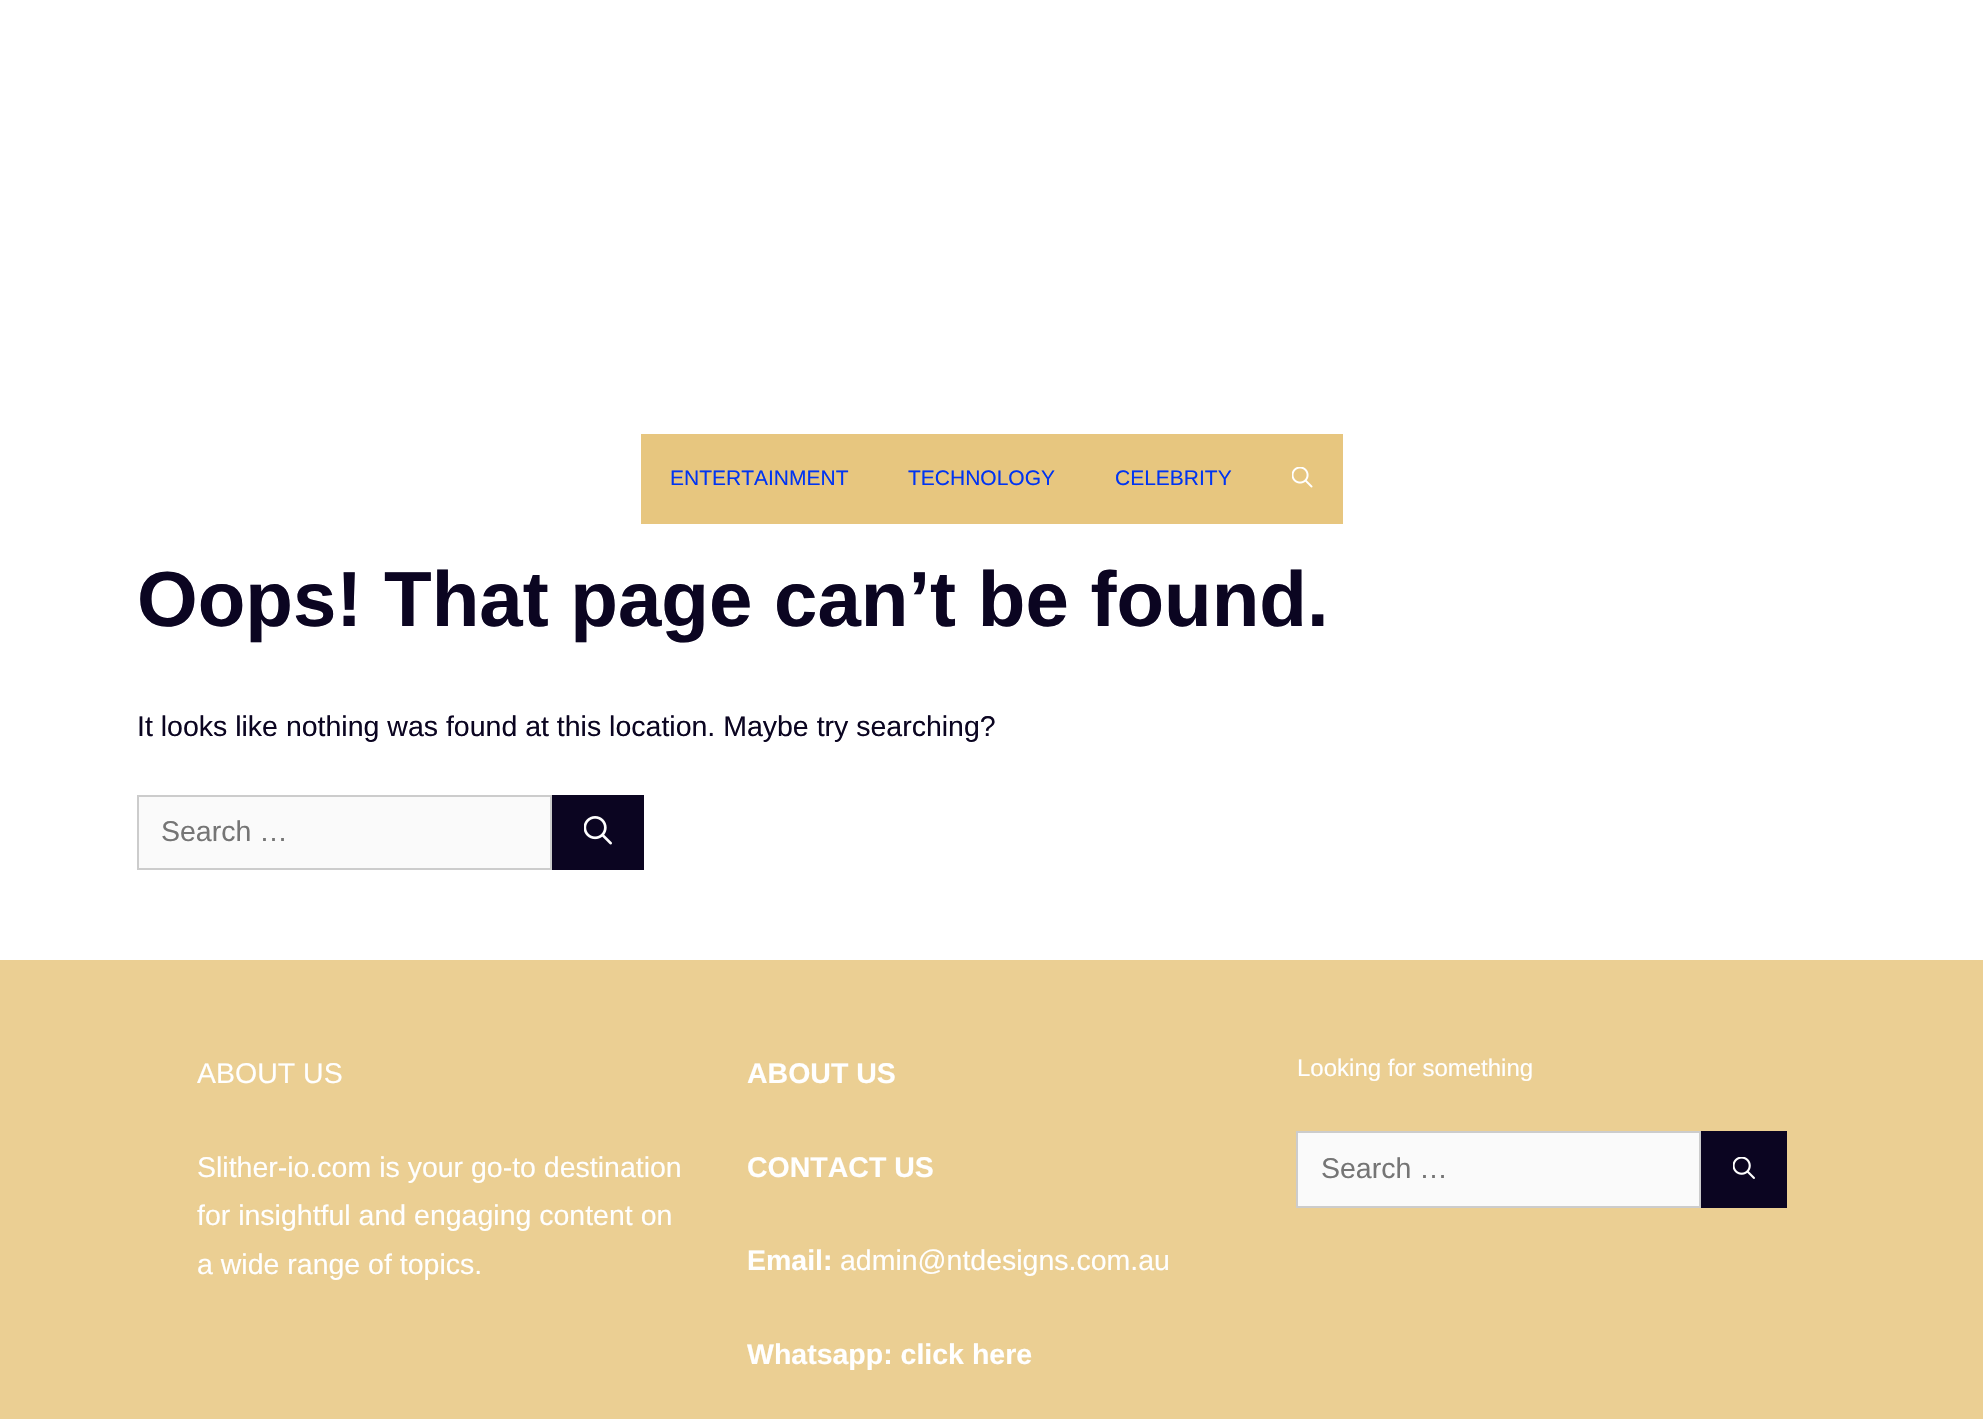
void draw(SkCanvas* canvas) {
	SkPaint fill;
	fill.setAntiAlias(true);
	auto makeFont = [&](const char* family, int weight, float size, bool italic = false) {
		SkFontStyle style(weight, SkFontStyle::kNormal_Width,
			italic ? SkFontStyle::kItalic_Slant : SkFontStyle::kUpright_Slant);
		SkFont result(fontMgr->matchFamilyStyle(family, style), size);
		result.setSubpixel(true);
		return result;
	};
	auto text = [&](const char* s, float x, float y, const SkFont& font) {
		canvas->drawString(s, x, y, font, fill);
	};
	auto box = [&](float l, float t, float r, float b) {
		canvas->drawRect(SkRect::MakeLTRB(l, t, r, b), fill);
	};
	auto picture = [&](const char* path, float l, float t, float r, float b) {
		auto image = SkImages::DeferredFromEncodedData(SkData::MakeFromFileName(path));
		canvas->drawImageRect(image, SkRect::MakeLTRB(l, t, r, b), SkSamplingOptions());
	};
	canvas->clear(0xFFFFFFFF);
	fill.setColor(0xFFE7C67F);
	box(641, 434, 1343, 524);
	picture("image0.png", 1292, 467, 1313, 488);
	fill.setColor(0xFFFAFAFA);
	canvas->drawRect(SkRect::MakeLTRB(138, 796, 551, 869), fill);
	fill.setStyle(SkPaint::kStroke_Style);
	fill.setStrokeWidth(2);
	fill.setColor(0xFFCCCCCC);
	canvas->drawRect(SkRect::MakeLTRB(138, 796, 551, 869), fill);
	fill.setStyle(SkPaint::kFill_Style);
	fill.setColor(0xFF0B0521);
	box(552, 795, 644, 870);
	picture("image1.png", 584, 816, 612, 845);
	fill.setColor(0xFFEBCF93);
	box(0, 960, 1983, 1419);
	fill.setColor(0xFFFAFAFA);
	canvas->drawRect(SkRect::MakeLTRB(1297, 1132, 1700, 1207), fill);
	fill.setStyle(SkPaint::kStroke_Style);
	fill.setColor(0xFFCCCCCC);
	canvas->drawRect(SkRect::MakeLTRB(1297, 1132, 1700, 1207), fill);
	fill.setStyle(SkPaint::kFill_Style);
	fill.setColor(0xFF0B0521);
	box(1701, 1131, 1787, 1208);
	picture("image2.png", 1733, 1157, 1755, 1179);
	auto font1 = makeFont("Liberation Sans", 400, 21);
	fill.setColor(0xFF0034F2);
	text("ENTERTAINMENT", 670, 485, font1);
	text("TECHNOLOGY", 908, 485, font1);
	text("CELEBRITY", 1115, 485, font1);
	auto font2 = makeFont("Liberation Sans", 700, 78);
	fill.setColor(0xFF0B0521);
	text("Oops! That page can’t be found.", 137, 626, font2);
	auto font3 = makeFont("Liberation Sans", 400, 28.5f);
	text("It looks like nothing was found at this location. Maybe try searching?", 137, 736, font3);
	fill.setColor(0xFF757575);
	text("Search …", 161, 841, font3);
	fill.setColor(0xFFFFFFFF);
	text("ABOUT US", 197, 1083, font3);
	text("Slither-io.com is your go-to destination", 197, 1177, font3);
	text("for insightful and engaging content on", 197, 1225, font3);
	text("a wide range of topics.", 197, 1274, font3);
	auto font4 = makeFont("Liberation Sans", 700, 28.5f);
	text("ABOUT US", 747, 1083, font4);
	text("CONTACT US", 747, 1177, font4);
	text("Email:", 747, 1270, font4);
	text("admin@ntdesigns.com.au", 840, 1270, font3);
	text("Whatsapp: click here", 747, 1364, font4);
	auto font5 = makeFont("Liberation Sans", 400, 24);
	text("Looking for something", 1297, 1076, font5);
	fill.setColor(0xFF757575);
	text("Search …", 1321, 1178, font3);
}
